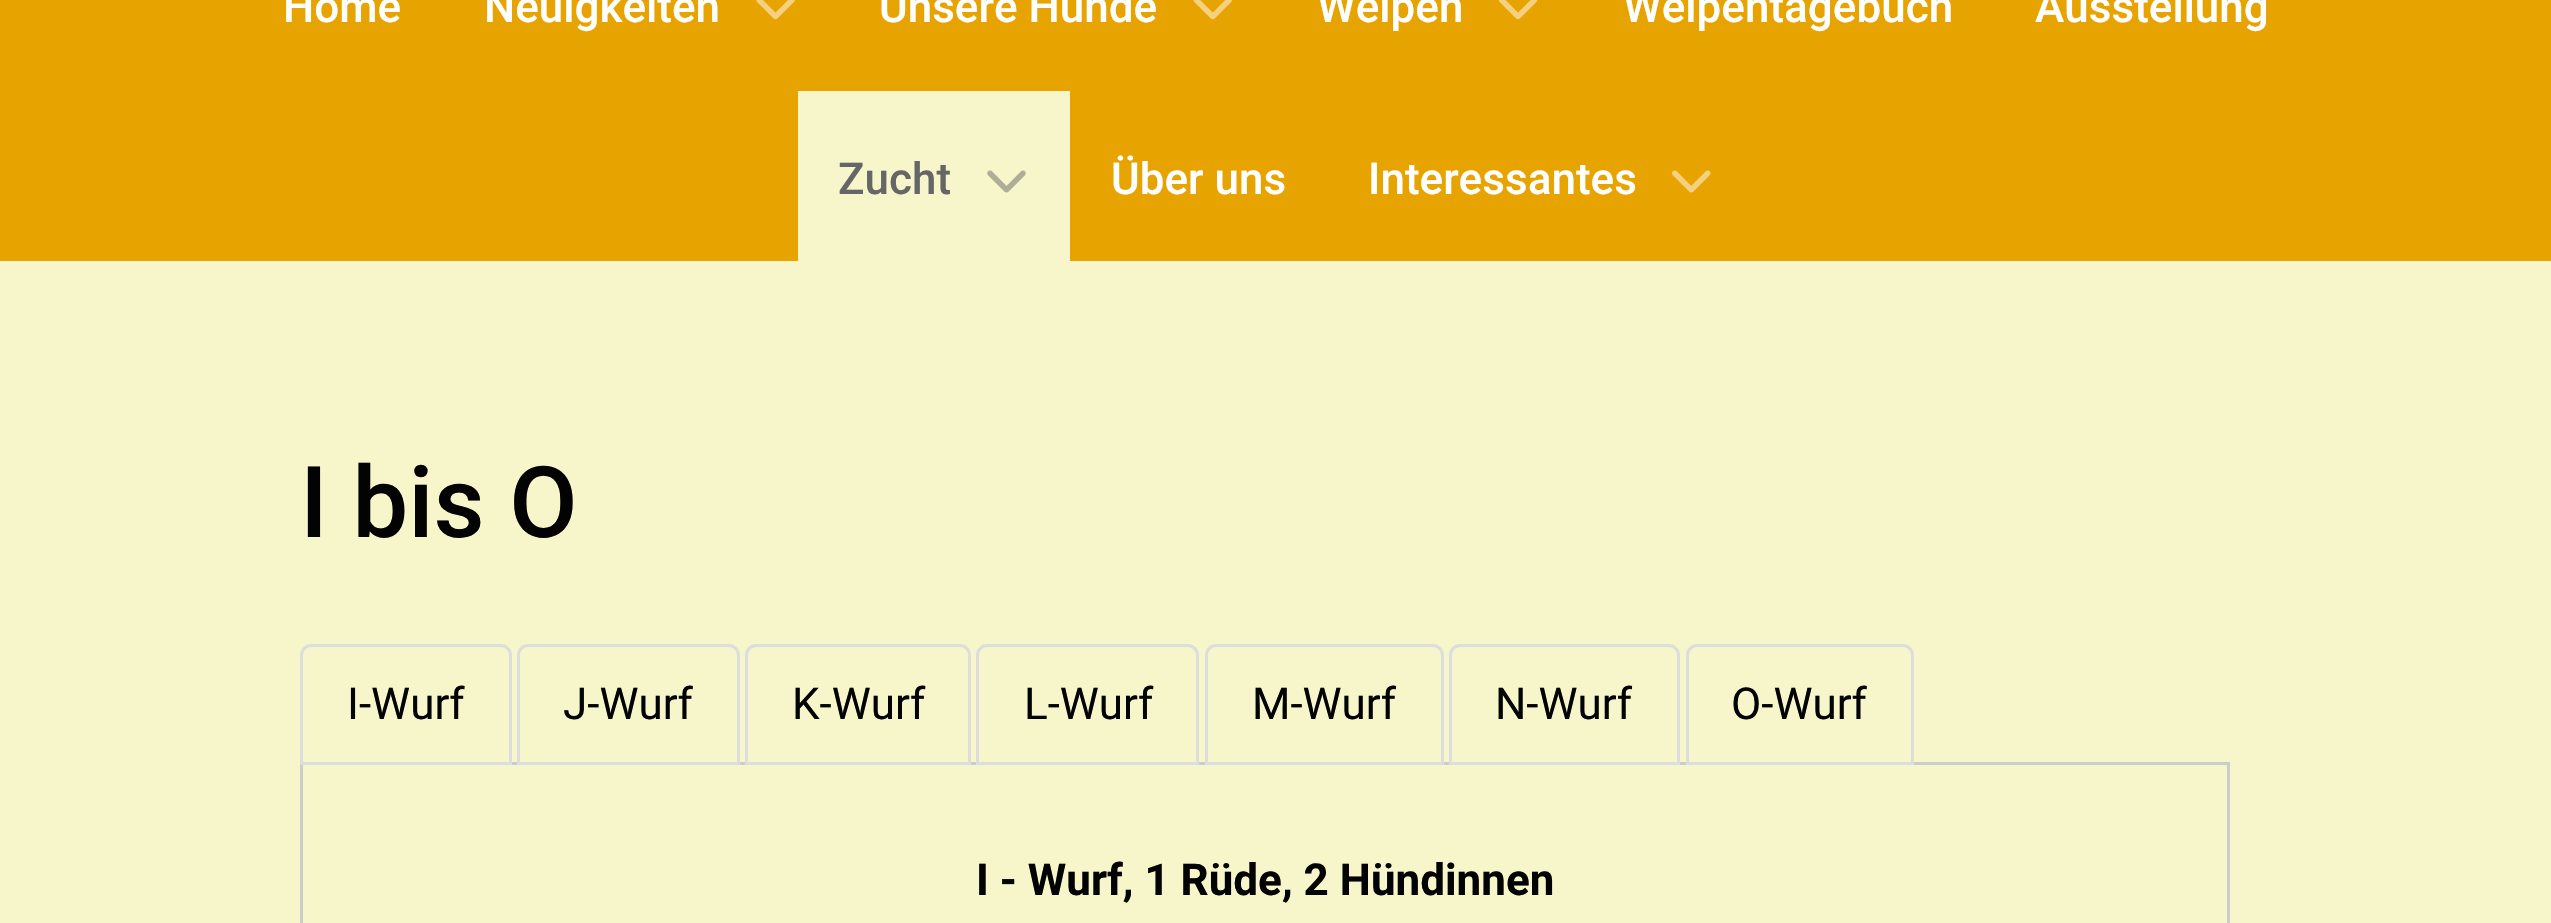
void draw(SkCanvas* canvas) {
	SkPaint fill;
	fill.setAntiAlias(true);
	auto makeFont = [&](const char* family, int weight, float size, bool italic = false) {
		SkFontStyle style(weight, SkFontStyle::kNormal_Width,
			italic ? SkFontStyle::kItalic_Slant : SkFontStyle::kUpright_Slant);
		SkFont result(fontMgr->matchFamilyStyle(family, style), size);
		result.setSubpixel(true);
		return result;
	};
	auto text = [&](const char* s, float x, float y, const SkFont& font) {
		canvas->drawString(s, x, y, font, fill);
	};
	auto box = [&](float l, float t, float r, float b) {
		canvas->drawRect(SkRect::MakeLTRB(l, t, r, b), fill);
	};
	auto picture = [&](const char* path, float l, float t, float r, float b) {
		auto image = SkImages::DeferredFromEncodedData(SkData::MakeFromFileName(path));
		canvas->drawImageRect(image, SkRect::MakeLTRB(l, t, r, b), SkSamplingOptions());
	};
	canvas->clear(0xFFF7F5CA);
	fill.setColor(0xFFE7A300);
	box(0, 0, 2551, 261);
	picture("image0.png", 756, 0, 795, 20);
	picture("image1.png", 1193, 0, 1232, 20);
	picture("image2.png", 1498, 0, 1538, 20);
	fill.setColor(0xFFF7F5CA);
	box(798, 91, 1070, 261);
	picture("image3.png", 987, 170, 1026, 193);
	picture("image4.png", 1672, 170, 1711, 193);
	fill.setStyle(SkPaint::kStroke_Style);
	fill.setStrokeWidth(3);
	fill.setColor(0xFFCCCCCC);
	canvas->drawRect(SkRect::MakeLTRB(301.5f, 763.5f, 2228.5f, 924.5f), fill);
	fill.setColor(0xFFDDDDDD);
	canvas->drawPath(SkPathBuilder().moveTo(311, 645.5f).lineTo(501, 645.5f).cubicTo(506, 645.5f, 510.5f, 650, 510.5f, 655).lineTo(510.5f, 763.5f).lineTo(301.5f, 763.5f).lineTo(301.5f, 655).cubicTo(301.5f, 650, 306, 645.5f, 311, 645.5f).close().detach(), fill);
	canvas->drawPath(SkPathBuilder().moveTo(528, 645.5f).lineTo(729, 645.5f).cubicTo(734, 645.5f, 738.5f, 650, 738.5f, 655).lineTo(738.5f, 763.5f).lineTo(518.5f, 763.5f).lineTo(518.5f, 655).cubicTo(518.5f, 650, 523, 645.5f, 528, 645.5f).close().detach(), fill);
	canvas->drawPath(SkPathBuilder().moveTo(756, 645.5f).lineTo(960, 645.5f).cubicTo(965, 645.5f, 969.5f, 650, 969.5f, 655).lineTo(969.5f, 763.5f).lineTo(746.5f, 763.5f).lineTo(746.5f, 655).cubicTo(746.5f, 650, 751, 645.5f, 756, 645.5f).close().detach(), fill);
	canvas->drawPath(SkPathBuilder().moveTo(987, 645.5f).lineTo(1188, 645.5f).cubicTo(1193, 645.5f, 1197.5f, 650, 1197.5f, 655).lineTo(1197.5f, 763.5f).lineTo(977.5f, 763.5f).lineTo(977.5f, 655).cubicTo(977.5f, 650, 982, 645.5f, 987, 645.5f).close().detach(), fill);
	canvas->drawPath(SkPathBuilder().moveTo(1216, 645.5f).lineTo(1433, 645.5f).cubicTo(1438, 645.5f, 1442.5f, 650, 1442.5f, 655).lineTo(1442.5f, 763.5f).lineTo(1206.5f, 763.5f).lineTo(1206.5f, 655).cubicTo(1206.5f, 650, 1211, 645.5f, 1216, 645.5f).close().detach(), fill);
	canvas->drawPath(SkPathBuilder().moveTo(1460, 645.5f).lineTo(1669, 645.5f).cubicTo(1674, 645.5f, 1678.5f, 650, 1678.5f, 655).lineTo(1678.5f, 763.5f).lineTo(1450.5f, 763.5f).lineTo(1450.5f, 655).cubicTo(1450.5f, 650, 1455, 645.5f, 1460, 645.5f).close().detach(), fill);
	canvas->drawPath(SkPathBuilder().moveTo(1697, 645.5f).lineTo(1903, 645.5f).cubicTo(1908, 645.5f, 1912.5f, 650, 1912.5f, 655).lineTo(1912.5f, 763.5f).lineTo(1687.5f, 763.5f).lineTo(1687.5f, 655).cubicTo(1687.5f, 650, 1692, 645.5f, 1697, 645.5f).close().detach(), fill);
	auto font1 = makeFont("Roboto", 500, 44);
	fill.setStyle(SkPaint::kFill_Style);
	fill.setColor(0xFFFFFFFF);
	text("Home", 283, 22, font1);
	text("Neuigkeiten", 484, 22, font1);
	text("Unsere Hunde", 879, 22, font1);
	text("Welpen", 1317, 22, font1);
	text("Welpentagebuch", 1623, 22, font1);
	text("Ausstellung", 2035, 22, font1);
	fill.setColor(0xFF666666);
	text("Zucht", 838, 194, font1);
	fill.setColor(0xFFFFFFFF);
	text("Über uns", 1111, 194, font1);
	text("Interessantes", 1368, 194, font1);
	auto font2 = makeFont("Roboto", 500, 99);
	fill.setColor(0xFF030303);
	text("I bis O", 300, 537, font2);
	auto font3 = makeFont("Roboto", 400, 44);
	text("I-Wurf", 347, 719, font3);
	text("J-Wurf", 563, 719, font3);
	text("K-Wurf", 792, 719, font3);
	text("L-Wurf", 1024, 719, font3);
	text("M-Wurf", 1252, 719, font3);
	text("N-Wurf", 1495, 719, font3);
	text("O-Wurf", 1731, 719, font3);
	auto font4 = makeFont("Roboto", 700, 44);
	text("I - Wurf, 1 Rüde, 2 Hündinnen", 976, 895, font4);
}
